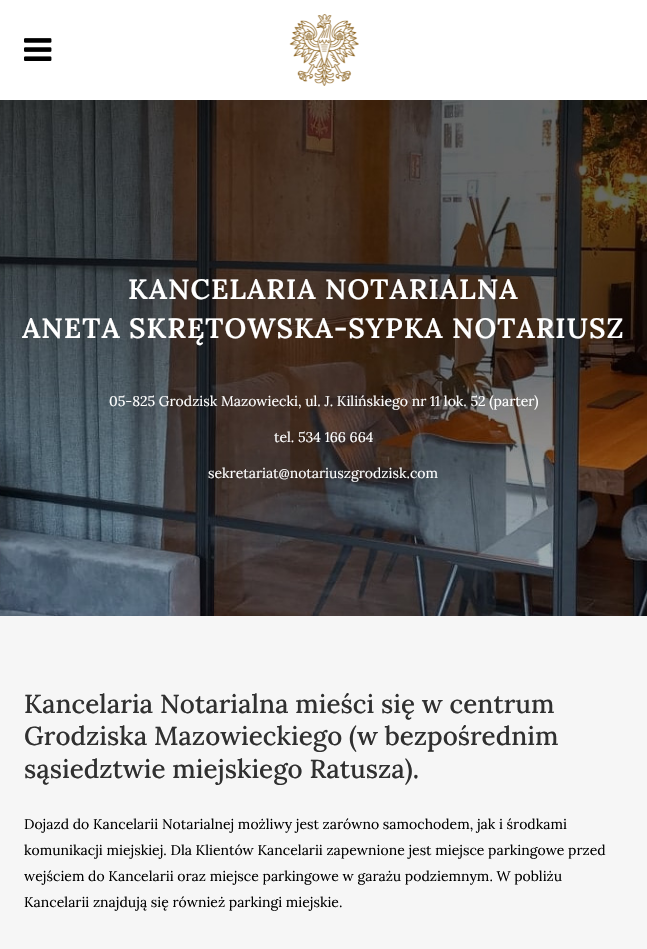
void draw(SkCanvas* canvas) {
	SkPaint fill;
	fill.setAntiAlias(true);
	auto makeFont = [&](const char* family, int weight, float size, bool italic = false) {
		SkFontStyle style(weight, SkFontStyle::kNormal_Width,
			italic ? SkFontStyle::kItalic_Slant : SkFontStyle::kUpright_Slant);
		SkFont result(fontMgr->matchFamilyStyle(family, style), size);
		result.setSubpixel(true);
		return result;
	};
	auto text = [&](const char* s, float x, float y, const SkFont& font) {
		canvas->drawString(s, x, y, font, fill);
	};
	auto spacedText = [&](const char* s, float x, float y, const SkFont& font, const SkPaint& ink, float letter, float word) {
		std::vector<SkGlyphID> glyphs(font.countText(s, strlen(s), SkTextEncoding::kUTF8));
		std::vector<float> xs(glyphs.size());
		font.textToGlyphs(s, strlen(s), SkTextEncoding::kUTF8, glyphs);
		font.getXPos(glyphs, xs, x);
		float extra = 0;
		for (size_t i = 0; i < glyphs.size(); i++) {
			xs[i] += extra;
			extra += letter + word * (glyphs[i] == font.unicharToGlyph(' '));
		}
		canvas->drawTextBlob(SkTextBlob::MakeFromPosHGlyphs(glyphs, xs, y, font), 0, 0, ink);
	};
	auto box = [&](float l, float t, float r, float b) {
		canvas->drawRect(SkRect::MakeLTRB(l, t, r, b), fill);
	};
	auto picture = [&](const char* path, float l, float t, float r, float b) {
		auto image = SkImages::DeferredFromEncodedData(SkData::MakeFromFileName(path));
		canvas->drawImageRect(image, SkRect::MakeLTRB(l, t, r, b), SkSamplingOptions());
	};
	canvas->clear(0xFFF6F6F6);
	fill.setColor(0xFFFFFFFF);
	box(0, 0, 647, 100);
	picture("image0.png", 24, 38, 52, 61);
	picture("image1.png", 289, 14, 359, 86);
	picture("image2.png", 0, 100, 647, 616);
	auto font1 = makeFont("Lora", 600, 28);
	spacedText("KANCELARIA NOTARIALNA", 128, 299, font1, fill, 1, 0);
	spacedText("ANETA SKRĘTOWSKA-SYPKA NOTARIUSZ", 22, 338, font1, fill, 1, 0);
	auto font2 = makeFont("Lora", 400, 14);
	text("05-825 Grodzisk Mazowiecki, ul. J. Kilińskiego nr 11 lok. 52 (parter)", 109, 406, font2);
	text("tel. 534 166 664", 274, 442, font2);
	text("sekretariat@notariuszgrodzisk.com", 208, 478, font2);
	auto font3 = makeFont("Lora", 500, 26);
	fill.setColor(0xFF303030);
	text("Kancelaria Notarialna mieści się w centrum", 24, 713, font3);
	text("Grodziska Mazowieckiego (w bezpośrednim", 24, 745, font3);
	text("sąsiedztwie miejskiego Ratusza).", 24, 778, font3);
	fill.setColor(0xFF000000);
	text("Dojazd do Kancelarii Notarialnej możliwy jest zarówno samochodem, jak i środkami", 24, 829, font2);
	text("komunikacji miejskiej. Dla Klientów Kancelarii zapewnione jest miejsce parkingowe przed", 24, 855, font2);
	text("wejściem do Kancelarii oraz miejsce parkingowe w garażu podziemnym. W pobliżu", 24, 881, font2);
	text("Kancelarii znajdują się również parkingi miejskie.", 24, 907, font2);
}
